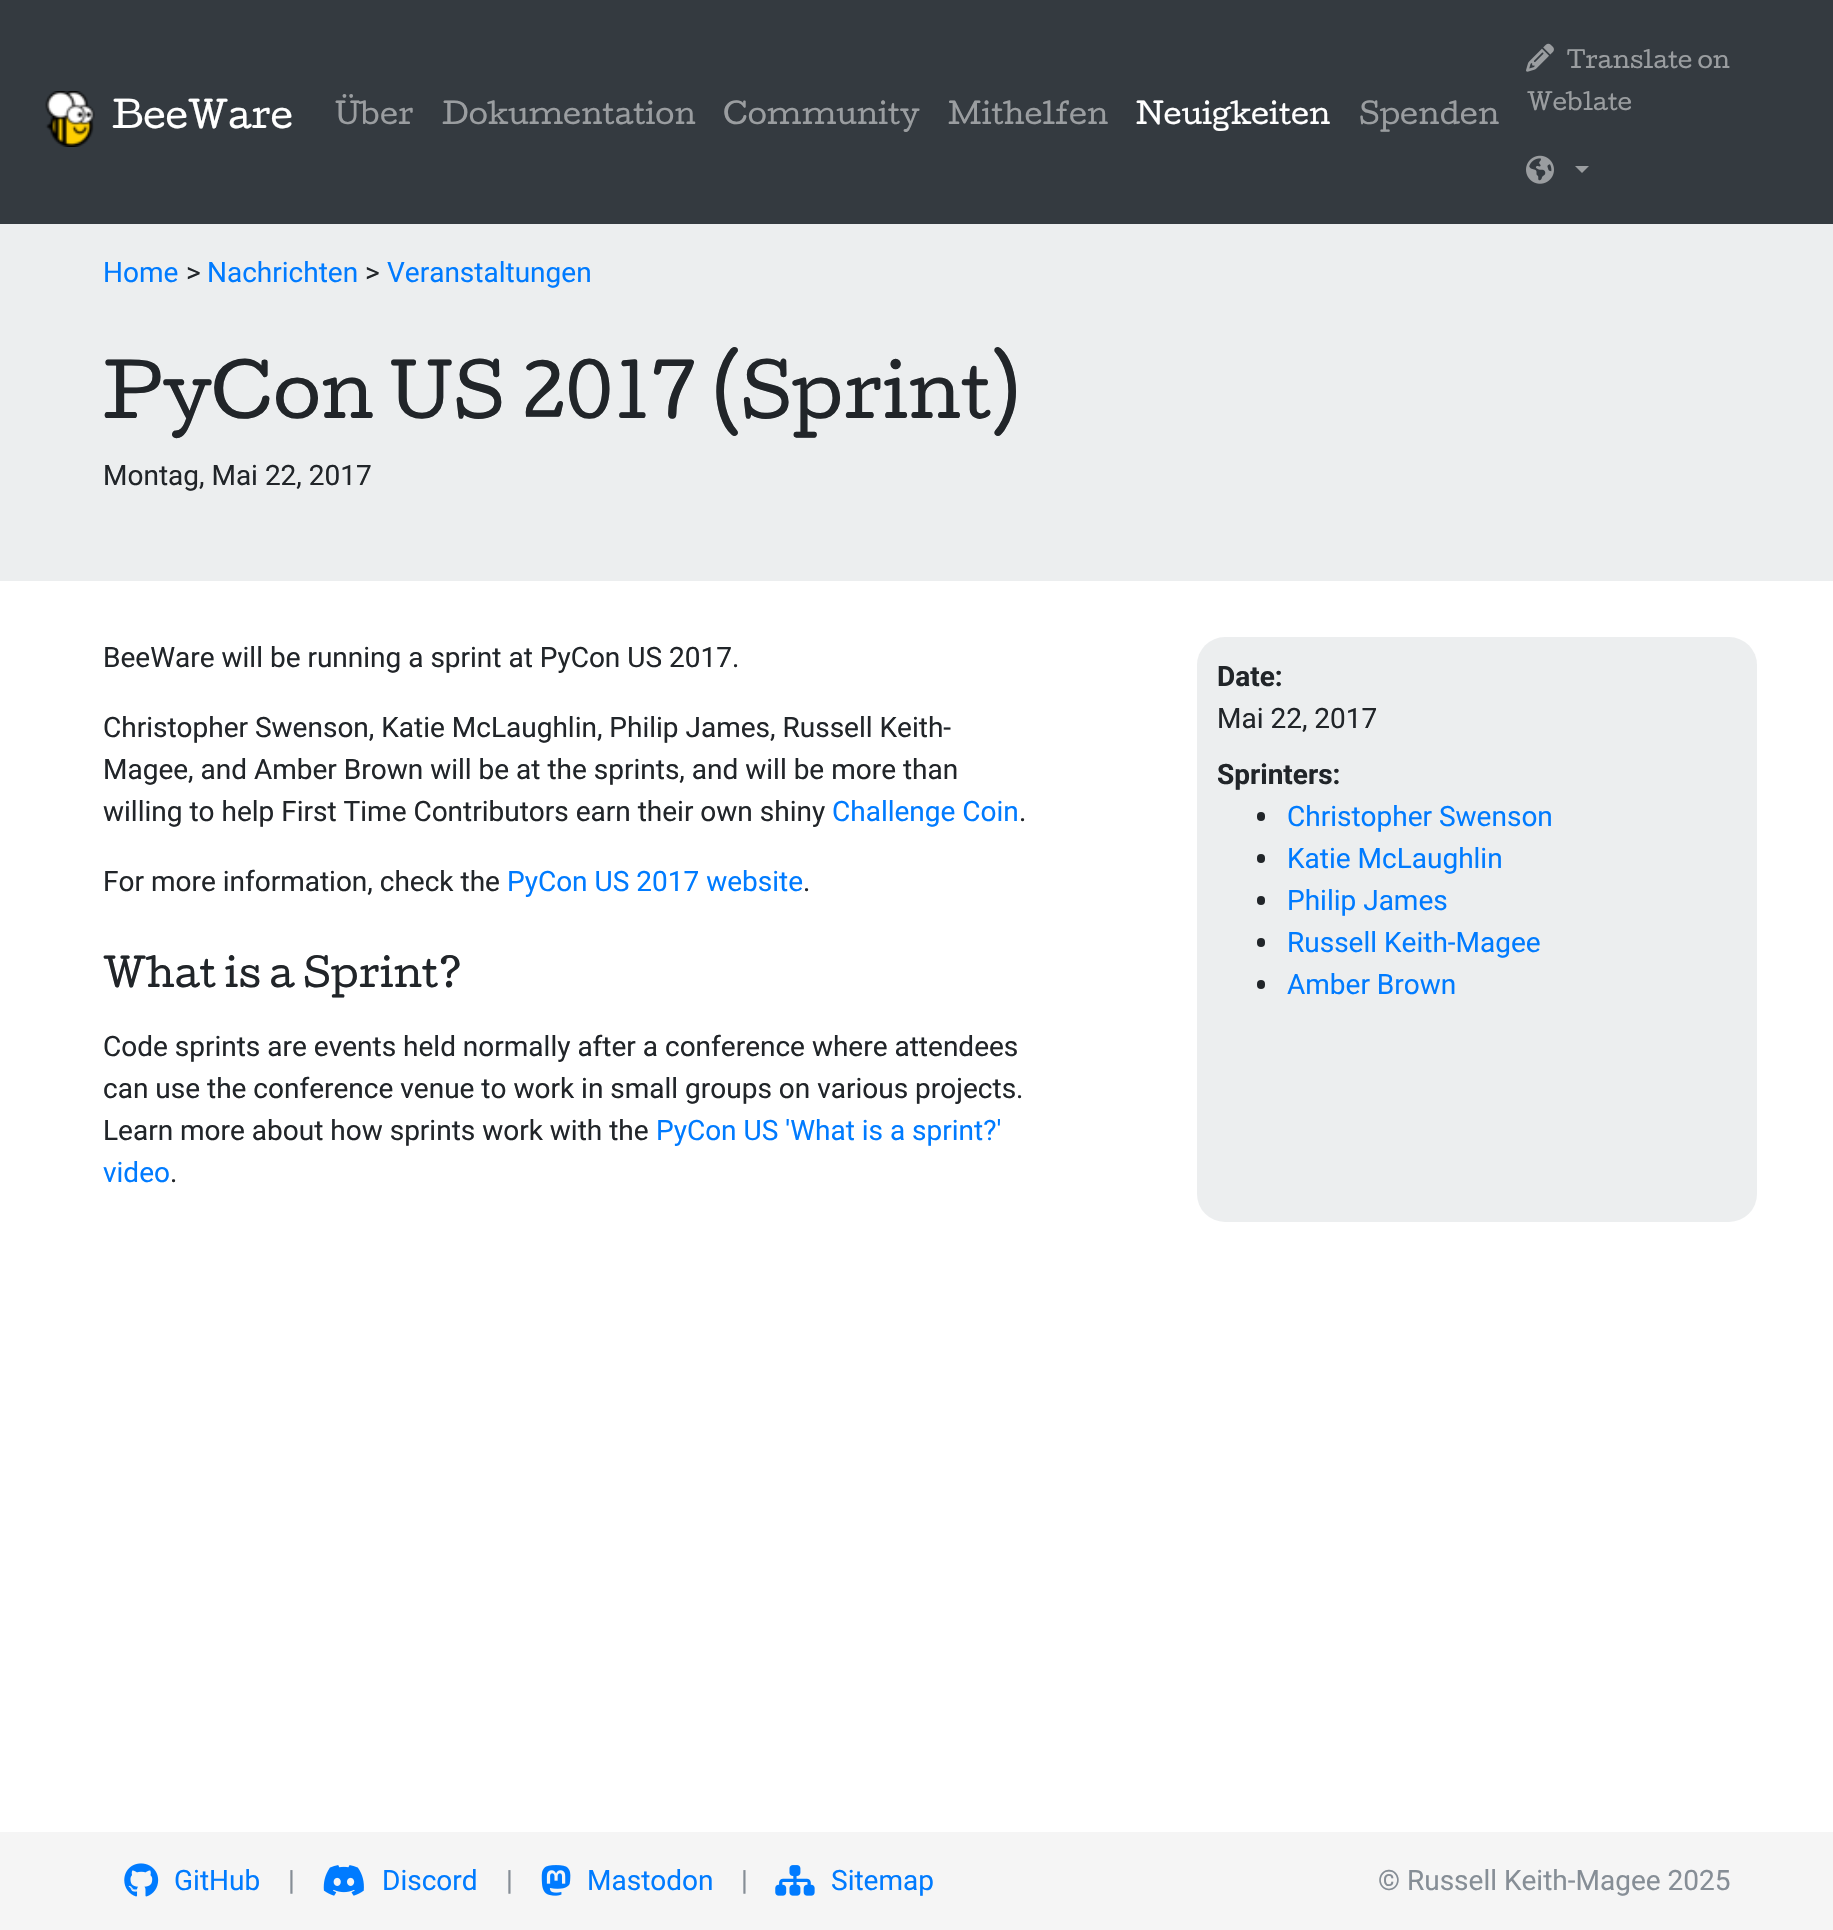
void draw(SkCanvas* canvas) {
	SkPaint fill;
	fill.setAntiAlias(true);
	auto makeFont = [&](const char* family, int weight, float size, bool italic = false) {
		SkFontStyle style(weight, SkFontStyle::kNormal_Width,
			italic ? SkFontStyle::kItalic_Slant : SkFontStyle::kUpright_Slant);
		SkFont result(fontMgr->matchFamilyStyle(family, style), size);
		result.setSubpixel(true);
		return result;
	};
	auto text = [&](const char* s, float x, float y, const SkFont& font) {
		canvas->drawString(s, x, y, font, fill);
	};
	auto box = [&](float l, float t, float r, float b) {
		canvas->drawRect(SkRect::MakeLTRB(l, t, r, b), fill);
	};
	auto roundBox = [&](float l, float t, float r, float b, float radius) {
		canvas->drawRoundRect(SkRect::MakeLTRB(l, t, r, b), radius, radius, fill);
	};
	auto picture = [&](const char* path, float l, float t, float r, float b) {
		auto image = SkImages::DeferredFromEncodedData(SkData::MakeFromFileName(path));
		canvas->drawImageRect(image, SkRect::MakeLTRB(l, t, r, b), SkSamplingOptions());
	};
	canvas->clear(0xFFFFFFFF);
	fill.setColor(0xFF343A40);
	box(0, 0, 1833, 224);
	picture("image0.png", 45, 91, 95, 147);
	picture("image1.png", 1526, 43, 1554, 72);
	picture("image2.png", 1526, 155, 1554, 184);
	fill.setColor(0xFF9A9DA0);
	canvas->drawPath(SkPathBuilder().moveTo(1575, 166).lineTo(1589, 166).lineTo(1582, 173).close().detach(), fill);
	fill.setColor(0xFFECEEEF);
	box(0, 224, 1833, 581);
	roundBox(1197, 637, 1757, 1222, 28);
	fill.setColor(0xFF212529);
	roundBox(1257, 812, 1265, 821, 4);
	roundBox(1257, 854, 1265, 863, 4);
	roundBox(1257, 896, 1265, 905, 4);
	roundBox(1257, 938, 1265, 947, 4);
	roundBox(1257, 980, 1265, 989, 4);
	fill.setColor(0xFFF5F5F5);
	box(0, 1832, 1833, 1930);
	picture("image3.png", 124, 1863, 159, 1897);
	picture("image4.png", 323, 1865, 364, 1896);
	picture("image5.png", 541, 1865, 571, 1896);
	picture("image6.png", 775, 1865, 815, 1896);
	auto font1 = makeFont("Cutive", 400, 35);
	fill.setColor(0xFFFFFFFF);
	text("BeeWare", 112, 128, font1);
	auto font2 = makeFont("Cutive", 400, 28);
	fill.setColor(0xFF9A9DA0);
	text("Über", 335, 124, font2);
	text("Dokumentation", 442, 124, font2);
	text("Community", 723, 124, font2);
	text("Mithelfen", 948, 124, font2);
	fill.setColor(0xFFFFFFFF);
	text("Neuigkeiten", 1136, 124, font2);
	fill.setColor(0xFF9A9DA0);
	text("Spenden", 1359, 124, font2);
	auto font3 = makeFont("Cutive", 400, 22.5f);
	text("Translate on", 1567, 68, font3);
	text("Weblate", 1527, 110, font3);
	auto font4 = makeFont("Roboto", 400, 28);
	fill.setColor(0xFF007BFF);
	text("Home", 103, 282, font4);
	fill.setColor(0xFF212529);
	text(">", 186, 282, font4);
	fill.setColor(0xFF007BFF);
	text("Nachrichten", 207, 282, font4);
	fill.setColor(0xFF212529);
	text(">", 365, 282, font4);
	fill.setColor(0xFF007BFF);
	text("Veranstaltungen", 387, 282, font4);
	auto font5 = makeFont("Cutive", 400, 70);
	fill.setColor(0xFF212529);
	text("PyCon US 2017 (Sprint)", 103, 418, font5);
	text("Montag, Mai 22, 2017", 103, 485, font4);
	text("BeeWare will be running a sprint at PyCon US 2017.", 103, 667, font4);
	text("Christopher Swenson, Katie McLaughlin, Philip James, Russell Keith-", 103, 737, font4);
	text("Magee, and Amber Brown will be at the sprints, and will be more than", 103, 779, font4);
	text("willing to help First Time Contributors earn their own shiny", 103, 821, font4);
	fill.setColor(0xFF007BFF);
	text("Challenge Coin", 832, 821, font4);
	fill.setColor(0xFF212529);
	text(".", 1019, 821, font4);
	text("For more information, check the", 103, 891, font4);
	fill.setColor(0xFF007BFF);
	text("PyCon US 2017 website", 507, 891, font4);
	fill.setColor(0xFF212529);
	text(".", 803, 891, font4);
	auto font6 = makeFont("Cutive", 400, 37.75f);
	text("What is a Sprint?", 103, 987, font6);
	text("Code sprints are events held normally after a conference where attendees", 103, 1056, font4);
	text("can use the conference venue to work in small groups on various projects.", 103, 1098, font4);
	text("Learn more about how sprints work with the", 103, 1140, font4);
	fill.setColor(0xFF007BFF);
	text("PyCon US 'What is a sprint?'", 656, 1140, font4);
	text("video", 103, 1182, font4);
	fill.setColor(0xFF212529);
	text(".", 170, 1182, font4);
	auto font7 = makeFont("Roboto", 700, 28);
	text("Date:", 1217, 686, font7);
	text("Mai 22, 2017", 1217, 728, font4);
	text("Sprinters:", 1217, 784, font7);
	fill.setColor(0xFF007BFF);
	text("Christopher Swenson", 1287, 826, font4);
	text("Katie McLaughlin", 1287, 868, font4);
	text("Philip James", 1287, 910, font4);
	text("Russell Keith-Magee", 1287, 952, font4);
	text("Amber Brown", 1287, 994, font4);
	text("GitHub", 174, 1890, font4);
	fill.setColor(0xFF868E96);
	text("|", 288, 1890, font4);
	fill.setColor(0xFF007BFF);
	text("Discord", 382, 1890, font4);
	fill.setColor(0xFF868E96);
	text("|", 506, 1890, font4);
	fill.setColor(0xFF007BFF);
	text("Mastodon", 587, 1890, font4);
	fill.setColor(0xFF868E96);
	text("|", 741, 1890, font4);
	fill.setColor(0xFF007BFF);
	text("Sitemap", 831, 1890, font4);
	fill.setColor(0xFF868E96);
	text("© Russell Keith-Magee 2025", 1378, 1890, font4);
}
